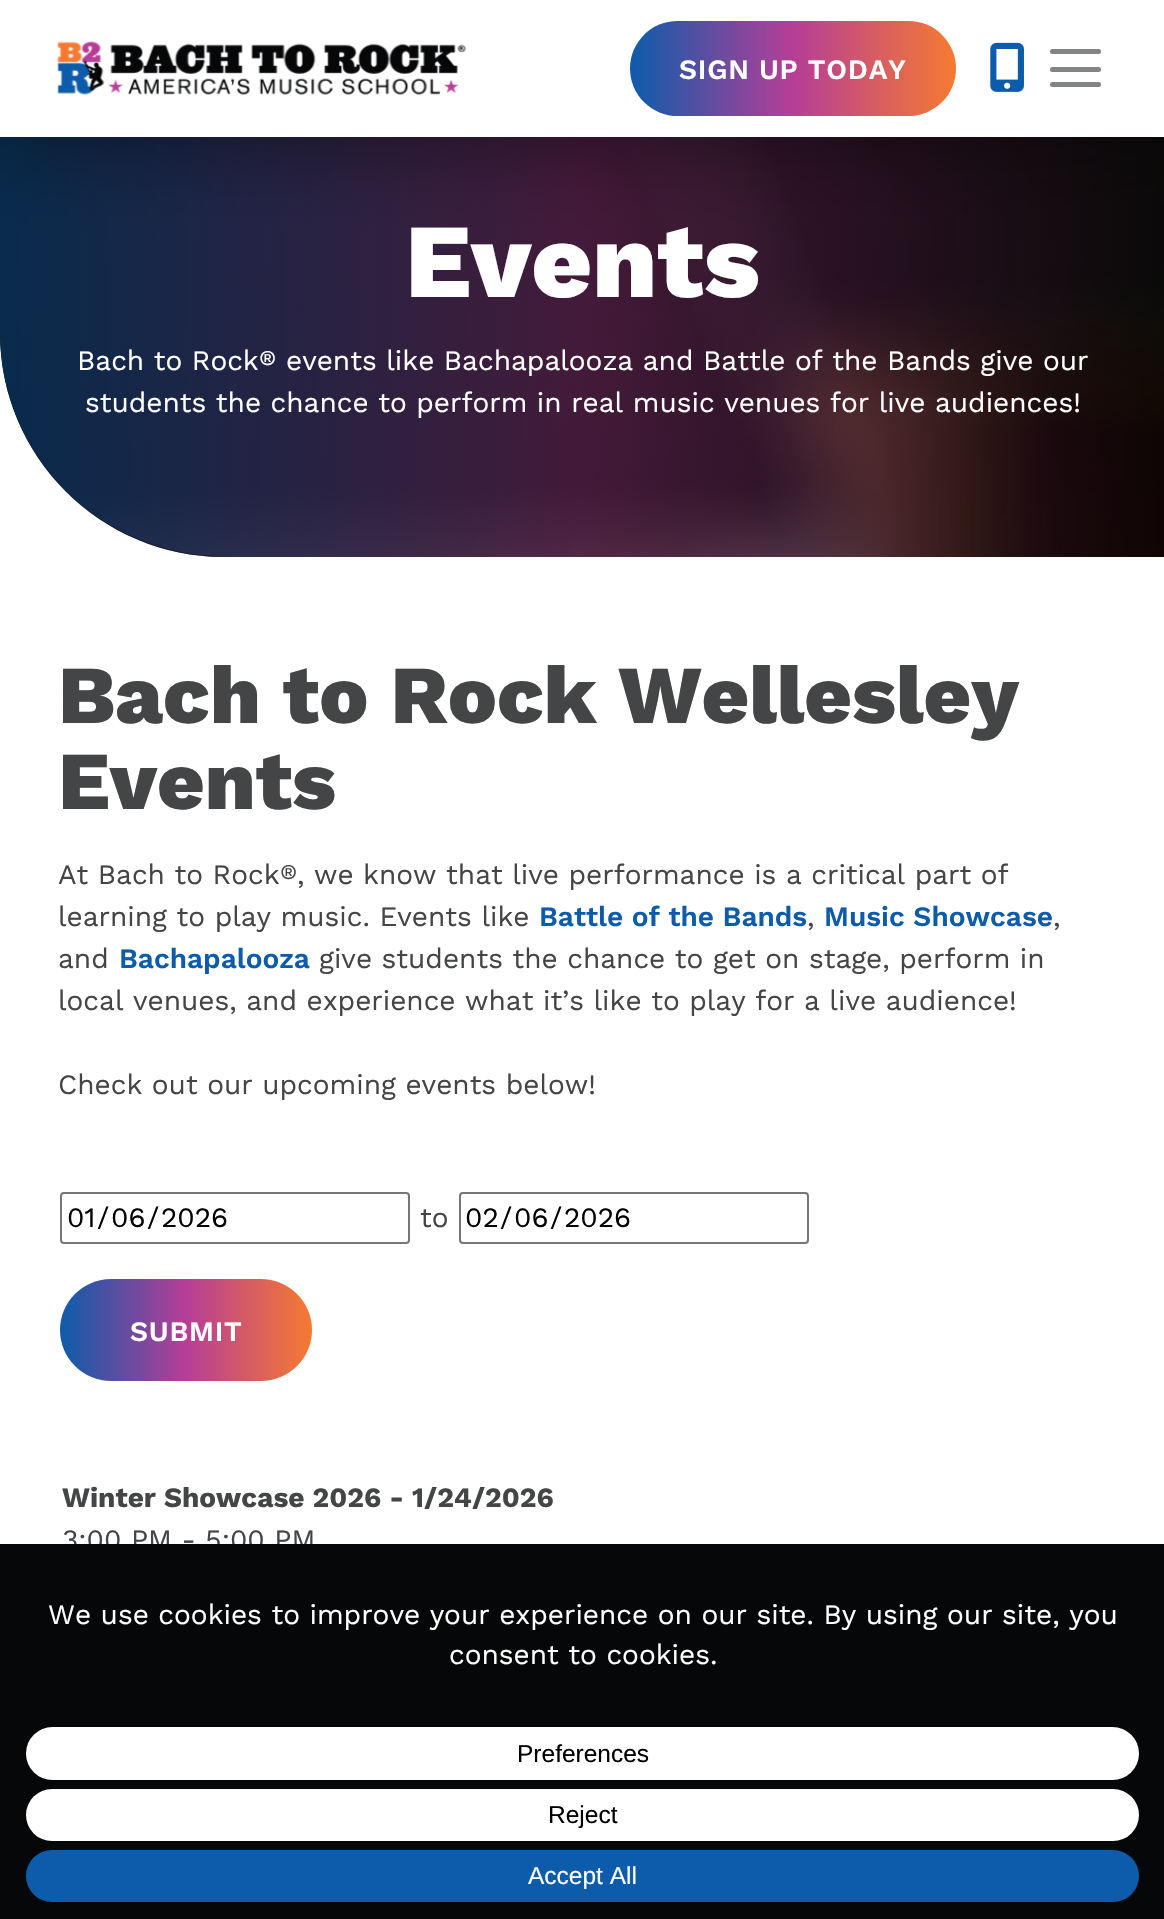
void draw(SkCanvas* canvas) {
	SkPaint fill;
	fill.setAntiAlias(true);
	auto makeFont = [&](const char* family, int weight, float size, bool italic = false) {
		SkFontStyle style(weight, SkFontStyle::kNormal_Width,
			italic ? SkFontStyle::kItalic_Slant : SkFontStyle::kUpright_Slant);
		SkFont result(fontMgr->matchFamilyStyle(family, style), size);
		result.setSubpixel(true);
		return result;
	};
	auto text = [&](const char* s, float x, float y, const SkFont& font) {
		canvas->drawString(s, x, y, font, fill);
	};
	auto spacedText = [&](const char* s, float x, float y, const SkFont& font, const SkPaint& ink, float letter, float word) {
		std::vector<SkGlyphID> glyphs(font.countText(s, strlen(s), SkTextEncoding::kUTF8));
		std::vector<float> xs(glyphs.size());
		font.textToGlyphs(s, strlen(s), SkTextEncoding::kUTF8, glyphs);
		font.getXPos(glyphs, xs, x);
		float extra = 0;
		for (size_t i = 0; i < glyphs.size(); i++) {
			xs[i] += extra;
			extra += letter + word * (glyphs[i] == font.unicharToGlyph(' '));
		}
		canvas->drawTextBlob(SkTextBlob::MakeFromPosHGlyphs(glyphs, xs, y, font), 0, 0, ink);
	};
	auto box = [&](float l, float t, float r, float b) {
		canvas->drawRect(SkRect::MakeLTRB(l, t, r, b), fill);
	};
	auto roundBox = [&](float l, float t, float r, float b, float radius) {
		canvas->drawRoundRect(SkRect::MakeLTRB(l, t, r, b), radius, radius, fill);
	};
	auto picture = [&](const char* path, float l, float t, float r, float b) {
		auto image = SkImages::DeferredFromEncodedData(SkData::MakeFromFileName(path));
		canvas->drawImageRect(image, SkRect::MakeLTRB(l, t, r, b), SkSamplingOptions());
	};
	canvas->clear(0xFFFFFFFF);
	fill.setColor(0xFF050708);
	canvas->drawPath(SkPathBuilder().moveTo(0, 137).lineTo(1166, 137).lineTo(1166, 557).lineTo(224, 557).cubicTo(100.5f, 557, 0, 456.5f, 0, 333).close().detach(), fill);
	picture("image2.png", 0, 137, 1164, 557);
	fill.setColor(0x80000000);
	fill.setMaskFilter(SkMaskFilter::MakeBlur(kNormal_SkBlurStyle, 44));
	canvas->drawRect(SkRect::MakeLTRB(0, 0, 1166, 137), fill);
	fill.setMaskFilter(nullptr);
	fill.setColor(0xFFFFFFFF);
	box(0, 0, 1164, 137);
	picture("image0.png", 57, 41, 466, 95);
	{
		const SkColor colors[] = {0xFF0D5CAB, 0xFFB63E97, 0xFFF67A30};
		const float stops[] = {0, 0.5f, 1};
		const SkPoint ends[] = {{630, 68}, {956, 68}};
		fill.setShader(SkGradientShader::MakeLinear(ends, colors, stops, 3, SkTileMode::kClamp));
		fill.setAlpha(255);
	}
	roundBox(630, 21, 956, 116, 47.5f);
	picture("image1.png", 990, 42, 1024, 92);
	fill.setShader(nullptr);
	fill.setColor(0xFF828384);
	roundBox(1050, 49, 1101, 54, 2.5f);
	roundBox(1050, 67, 1101, 72, 2.5f);
	roundBox(1050, 82, 1101, 87, 2.5f);
	fill.setStyle(SkPaint::kStroke_Style);
	fill.setStrokeWidth(2);
	fill.setColor(0xFF767676);
	canvas->drawRoundRect(SkRect::MakeLTRB(61, 1193, 409, 1243), 3, 3, fill);
	canvas->drawRoundRect(SkRect::MakeLTRB(460, 1193, 808, 1243), 3, 3, fill);
	fill.setStyle(SkPaint::kFill_Style);
	{
		const SkColor colors[] = {0xFF0D5CAB, 0xFFB63E97, 0xFFF67A30};
		const float stops[] = {0, 0.5f, 1};
		const SkPoint ends[] = {{60, 1330}, {312, 1330}};
		fill.setShader(SkGradientShader::MakeLinear(ends, colors, stops, 3, SkTileMode::kClamp));
		fill.setAlpha(255);
	}
	roundBox(60, 1279, 312, 1381, 51);
	auto font1 = makeFont("Work Sans", 600, 28);
	fill.setShader(nullptr);
	fill.setColor(0xFFFFFFFF);
	spacedText("SIGN UP TODAY", 679, 79, font1, fill, 0.75f, 0);
	auto font2 = makeFont("Work Sans", 800, 105);
	text("Events", 405, 297, font2);
	auto font3 = makeFont("Work Sans", 400, 28);
	text("Bach to Rock", 77, 370, font3);
	auto font4 = makeFont("Work Sans", 400, 21);
	text("®", 259, 365, font4);
	text("events like Bachapalooza and Battle of the Bands give our", 286, 370, font3);
	text("students the chance to perform in real music venues for live audiences!", 85, 412, font3);
	auto font5 = makeFont("Work Sans", 800, 82.25f);
	fill.setColor(0xFF444546);
	text("Bach to Rock Wellesley", 58, 723, font5);
	text("Events", 58, 809, font5);
	text("At Bach to Rock", 58, 884, font3);
	text("®", 280, 879, font4);
	text(", we know that live performance is a critical part of", 297, 884, font3);
	text("learning to play music. Events like", 58, 926, font3);
	fill.setColor(0xFF0D5CAB);
	text("Battle of the Bands", 539, 926, font1);
	fill.setColor(0xFF444546);
	text(",", 807, 926, font3);
	fill.setColor(0xFF0D5CAB);
	text("Music Showcase", 824, 926, font1);
	fill.setColor(0xFF444546);
	text(",", 1053, 926, font3);
	text("and", 58, 968, font3);
	fill.setColor(0xFF0D5CAB);
	text("Bachapalooza", 119, 968, font1);
	fill.setColor(0xFF444546);
	text("give students the chance to get on stage, perform in", 319, 968, font3);
	text("local venues, and experience what it’s like to play for a live audience!", 58, 1010, font3);
	text("Check out our upcoming events below!", 58, 1094, font3);
	fill.setColor(0xFF000000);
	text("01", 67, 1227, font3);
	text("/", 97, 1227, font3);
	text("06", 111, 1227, font3);
	text("/", 147, 1227, font3);
	text("2026", 161, 1227, font3);
	fill.setColor(0xFF444546);
	text("to", 420, 1227, font3);
	fill.setColor(0xFF000000);
	text("02", 465, 1227, font3);
	text("/", 500, 1227, font3);
	text("06", 514, 1227, font3);
	text("/", 550, 1227, font3);
	text("2026", 564, 1227, font3);
	fill.setColor(0xFFFFFFFF);
	spacedText("SUBMIT", 130, 1341, font1, fill, 0.75f, 0);
	auto font6 = makeFont("Work Sans", 700, 28);
	fill.setColor(0xFF444546);
	text("Winter Showcase 2026 - 1/24/2026", 62, 1507, font6);
	text("3:00 PM - 5:00 PM", 62, 1549, font3);
	fill.setColor(0xFF050708);
	box(0, 1544, 1164, 1919);
	fill.setColor(0xFFFFFFFF);
	text("We use cookies to improve your experience on our site. By using our site, you", 48, 1624, font3);
	text("consent to cookies.", 449, 1664, font3);
	roundBox(26, 1727, 1139, 1780, 26.5f);
	auto font7 = makeFont("Liberation Sans", 400, 24.5f);
	fill.setColor(0xFF000000);
	text("Preferences", 517, 1762, font7);
	fill.setColor(0xFFFFFFFF);
	roundBox(26, 1789, 1139, 1841, 26);
	fill.setColor(0xFF000000);
	text("Reject", 548, 1823, font7);
	fill.setColor(0xFF0D5CAB);
	roundBox(26, 1850, 1139, 1902, 26);
	fill.setColor(0xFFFFFFFF);
	text("Accept All", 528, 1884, font7);
}
